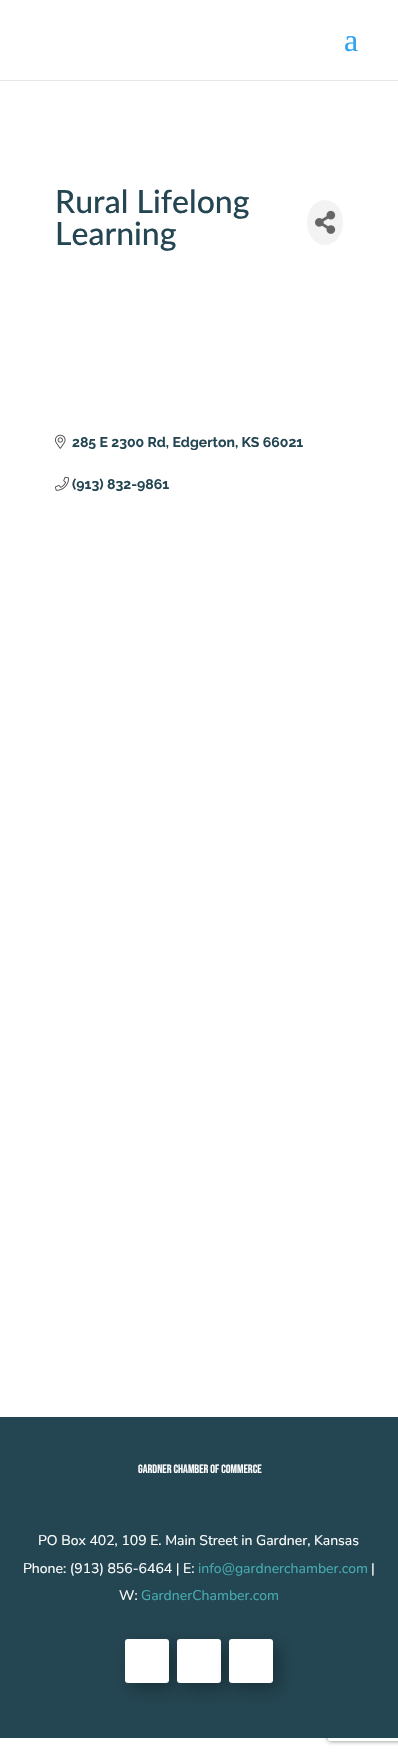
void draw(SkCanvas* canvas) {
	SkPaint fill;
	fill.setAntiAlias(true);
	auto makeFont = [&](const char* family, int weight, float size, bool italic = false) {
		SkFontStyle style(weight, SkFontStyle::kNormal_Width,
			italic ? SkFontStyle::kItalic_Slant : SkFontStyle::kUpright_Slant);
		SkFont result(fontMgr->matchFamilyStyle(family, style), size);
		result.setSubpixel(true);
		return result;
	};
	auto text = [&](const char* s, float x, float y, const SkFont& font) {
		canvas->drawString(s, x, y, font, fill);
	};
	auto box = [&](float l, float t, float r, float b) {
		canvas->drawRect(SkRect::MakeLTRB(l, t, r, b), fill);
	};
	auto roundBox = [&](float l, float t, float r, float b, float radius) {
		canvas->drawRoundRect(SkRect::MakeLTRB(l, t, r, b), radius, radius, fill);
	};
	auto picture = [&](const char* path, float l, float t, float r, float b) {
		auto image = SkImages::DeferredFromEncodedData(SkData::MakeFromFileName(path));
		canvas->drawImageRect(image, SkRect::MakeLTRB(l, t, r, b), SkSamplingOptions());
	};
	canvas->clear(0xFFFFFFFF);
	fill.setColor(0xFFE6E6E6);
	box(0, 80, 398, 81);
	fill.setColor(0xFFF3F3F3);
	canvas->drawOval(SkRect::MakeLTRB(307, 200, 343, 245), fill);
	picture("image0.png", 315, 210, 336, 234);
	picture("image1.png", 55, 434, 66, 449);
	picture("image2.png", 55, 476, 69, 491);
	canvas->save();
	canvas->clipPath(SkPathBuilder(SkPathFillType::kEvenOdd).moveTo(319, 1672).lineTo(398, 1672).lineTo(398, 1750).lineTo(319, 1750).close().moveTo(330, 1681).lineTo(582, 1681).cubicTo(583, 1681, 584, 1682, 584, 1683).lineTo(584, 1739).cubicTo(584, 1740, 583, 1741, 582, 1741).lineTo(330, 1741).cubicTo(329, 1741, 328, 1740, 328, 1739).lineTo(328, 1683).cubicTo(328, 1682, 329, 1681, 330, 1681).close().detach(), true);
	fill.setColor(0xFF808080);
	fill.setMaskFilter(SkMaskFilter::MakeBlur(kNormal_SkBlurStyle, 2.5f));
	canvas->drawRoundRect(SkRect::MakeLTRB(328, 1681, 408, 1741), 2, 2, fill);
	fill.setMaskFilter(nullptr);
	canvas->restore();
	fill.setColor(0xFF244652);
	box(0, 1417, 398, 1738);
	fill.setColor(0x4D000000);
	fill.setMaskFilter(SkMaskFilter::MakeBlur(kNormal_SkBlurStyle, 9));
	canvas->drawRoundRect(SkRect::MakeLTRB(131, 1645, 175, 1689), 3, 3, fill);
	fill.setMaskFilter(nullptr);
	fill.setColor(0xFFFFFFFF);
	roundBox(125, 1639, 169, 1683, 3);
	fill.setColor(0x4D000000);
	fill.setMaskFilter(SkMaskFilter::MakeBlur(kNormal_SkBlurStyle, 9));
	canvas->drawRoundRect(SkRect::MakeLTRB(183, 1645, 227, 1689), 3, 3, fill);
	fill.setMaskFilter(nullptr);
	fill.setColor(0xFFFFFFFF);
	roundBox(177, 1639, 221, 1683, 3);
	fill.setColor(0x4D000000);
	fill.setMaskFilter(SkMaskFilter::MakeBlur(kNormal_SkBlurStyle, 9));
	canvas->drawRoundRect(SkRect::MakeLTRB(235, 1645, 279, 1689), 3, 3, fill);
	fill.setMaskFilter(nullptr);
	fill.setColor(0xFFFFFFFF);
	roundBox(229, 1639, 273, 1683, 3);
	auto font1 = makeFont("Liberation Serif", 400, 32);
	fill.setColor(0xFF2EA3F2);
	text("a", 344, 51, font1);
	auto font2 = makeFont("Lato", 500, 32);
	fill.setColor(0xFF244652);
	text("Rural Lifelong", 55, 213, font2);
	text("Learning", 55, 245, font2);
	auto font3 = makeFont("Raleway", 700, 14);
	text("285 E 2300 Rd, Edgerton, KS 66021", 72, 447, font3);
	text("(913) 832-9861", 72, 489, font3);
	auto font4 = makeFont("Bebas Neue", 400, 12);
	fill.setColor(0xFFFFFFFF);
	text("GARDNER CHAMBER OF COMMERCE", 138, 1473, font4);
	auto font5 = makeFont("Nunito Sans", 200, 14);
	text("PO Box 402, 109 E. Main Street in Gardner, Kansas", 38, 1545, font5);
	text("Phone: (913) 856-6464 | E:", 23, 1573, font5);
	fill.setColor(0xFF46ACB1);
	text("info@gardnerchamber.com", 198, 1573, font5);
	fill.setColor(0xFFFFFFFF);
	text("|", 371, 1573, font5);
	text("W:", 119, 1600, font5);
	fill.setColor(0xFF46ACB1);
	text("GardnerChamber.com", 141, 1600, font5);
}
